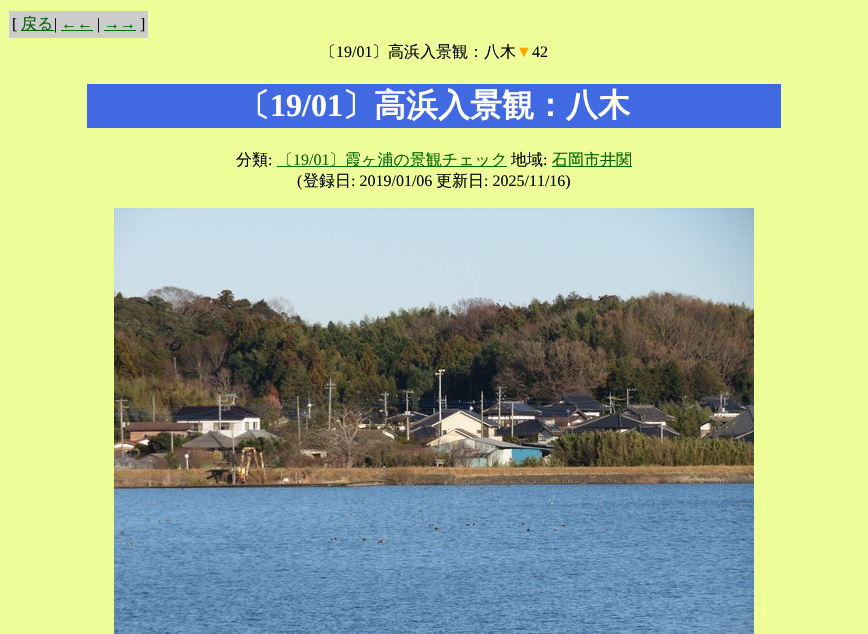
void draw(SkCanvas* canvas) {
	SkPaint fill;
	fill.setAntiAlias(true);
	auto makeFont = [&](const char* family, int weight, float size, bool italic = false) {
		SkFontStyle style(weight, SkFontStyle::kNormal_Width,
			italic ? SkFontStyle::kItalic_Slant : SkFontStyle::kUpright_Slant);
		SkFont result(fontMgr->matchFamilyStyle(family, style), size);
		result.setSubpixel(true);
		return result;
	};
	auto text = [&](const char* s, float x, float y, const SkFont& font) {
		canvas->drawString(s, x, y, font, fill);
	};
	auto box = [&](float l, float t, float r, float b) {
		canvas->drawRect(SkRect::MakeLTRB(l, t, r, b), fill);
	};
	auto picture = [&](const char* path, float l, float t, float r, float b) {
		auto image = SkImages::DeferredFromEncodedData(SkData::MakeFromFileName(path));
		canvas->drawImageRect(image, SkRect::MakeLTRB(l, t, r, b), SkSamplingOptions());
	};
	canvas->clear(0xFFEEFF99);
	fill.setColor(0xFFCCCCCC);
	box(9, 11, 148, 38);
	fill.setColor(0xFF006600);
	box(21, 30, 54, 31);
	box(61, 30, 93, 31);
	box(104, 30, 136, 31);
	fill.setColor(0xFF4169E1);
	box(87, 84, 781, 128);
	fill.setColor(0xFF006600);
	box(277, 166, 507, 167);
	box(552, 166, 632, 167);
	picture("image0.png", 114, 208, 754, 634);
	auto font1 = makeFont("Liberation Serif", 400, 16);
	fill.setColor(0xFF000000);
	text("[", 12, 29, font1);
	auto font2 = makeFont("WenQuanYi Zen Hei", 500, 16);
	fill.setColor(0xFF006600);
	text("戻る", 21, 29, font2);
	fill.setColor(0xFF000000);
	text("|", 54, 29, font1);
	fill.setColor(0xFF006600);
	text("←←", 61, 29, font1);
	fill.setColor(0xFF000000);
	text("|", 97, 29, font1);
	fill.setColor(0xFF006600);
	text("→→", 104, 29, font1);
	fill.setColor(0xFF000000);
	text("]", 140, 29, font1);
	text("〔", 320, 57, font2);
	text("19/01", 336, 57, font1);
	text("〕高浜入景観：八木", 372, 57, font2);
	fill.setColor(0xFFFFA500);
	text("▼", 516, 57, font1);
	fill.setColor(0xFF000000);
	text("42", 532, 57, font1);
	auto font3 = makeFont("WenQuanYi Zen Hei", 700, 32);
	fill.setColor(0xFFFFFFFF);
	text("〔", 238, 116, font3);
	auto font4 = makeFont("Liberation Serif", 700, 32);
	text("19/01", 270, 116, font4);
	text("〕高浜入景観：八木", 342, 116, font3);
	fill.setColor(0xFF000000);
	text("分類", 236, 165, font2);
	text(":", 268, 165, font1);
	fill.setColor(0xFF006600);
	text("〔", 277, 165, font2);
	text("19/01", 293, 165, font1);
	text("〕霞ヶ浦の景観チェック", 329, 165, font2);
	fill.setColor(0xFF000000);
	text("地域", 511, 165, font2);
	text(":", 543, 165, font1);
	fill.setColor(0xFF006600);
	text("石岡市井関", 552, 165, font2);
	fill.setColor(0xFF000000);
	text("(", 297, 186, font1);
	text("登録日", 303, 186, font2);
	text(": 2019/01/06", 351, 186, font1);
	text("更新日", 436, 186, font2);
	text(": 2025/11/16)", 484, 186, font1);
}
